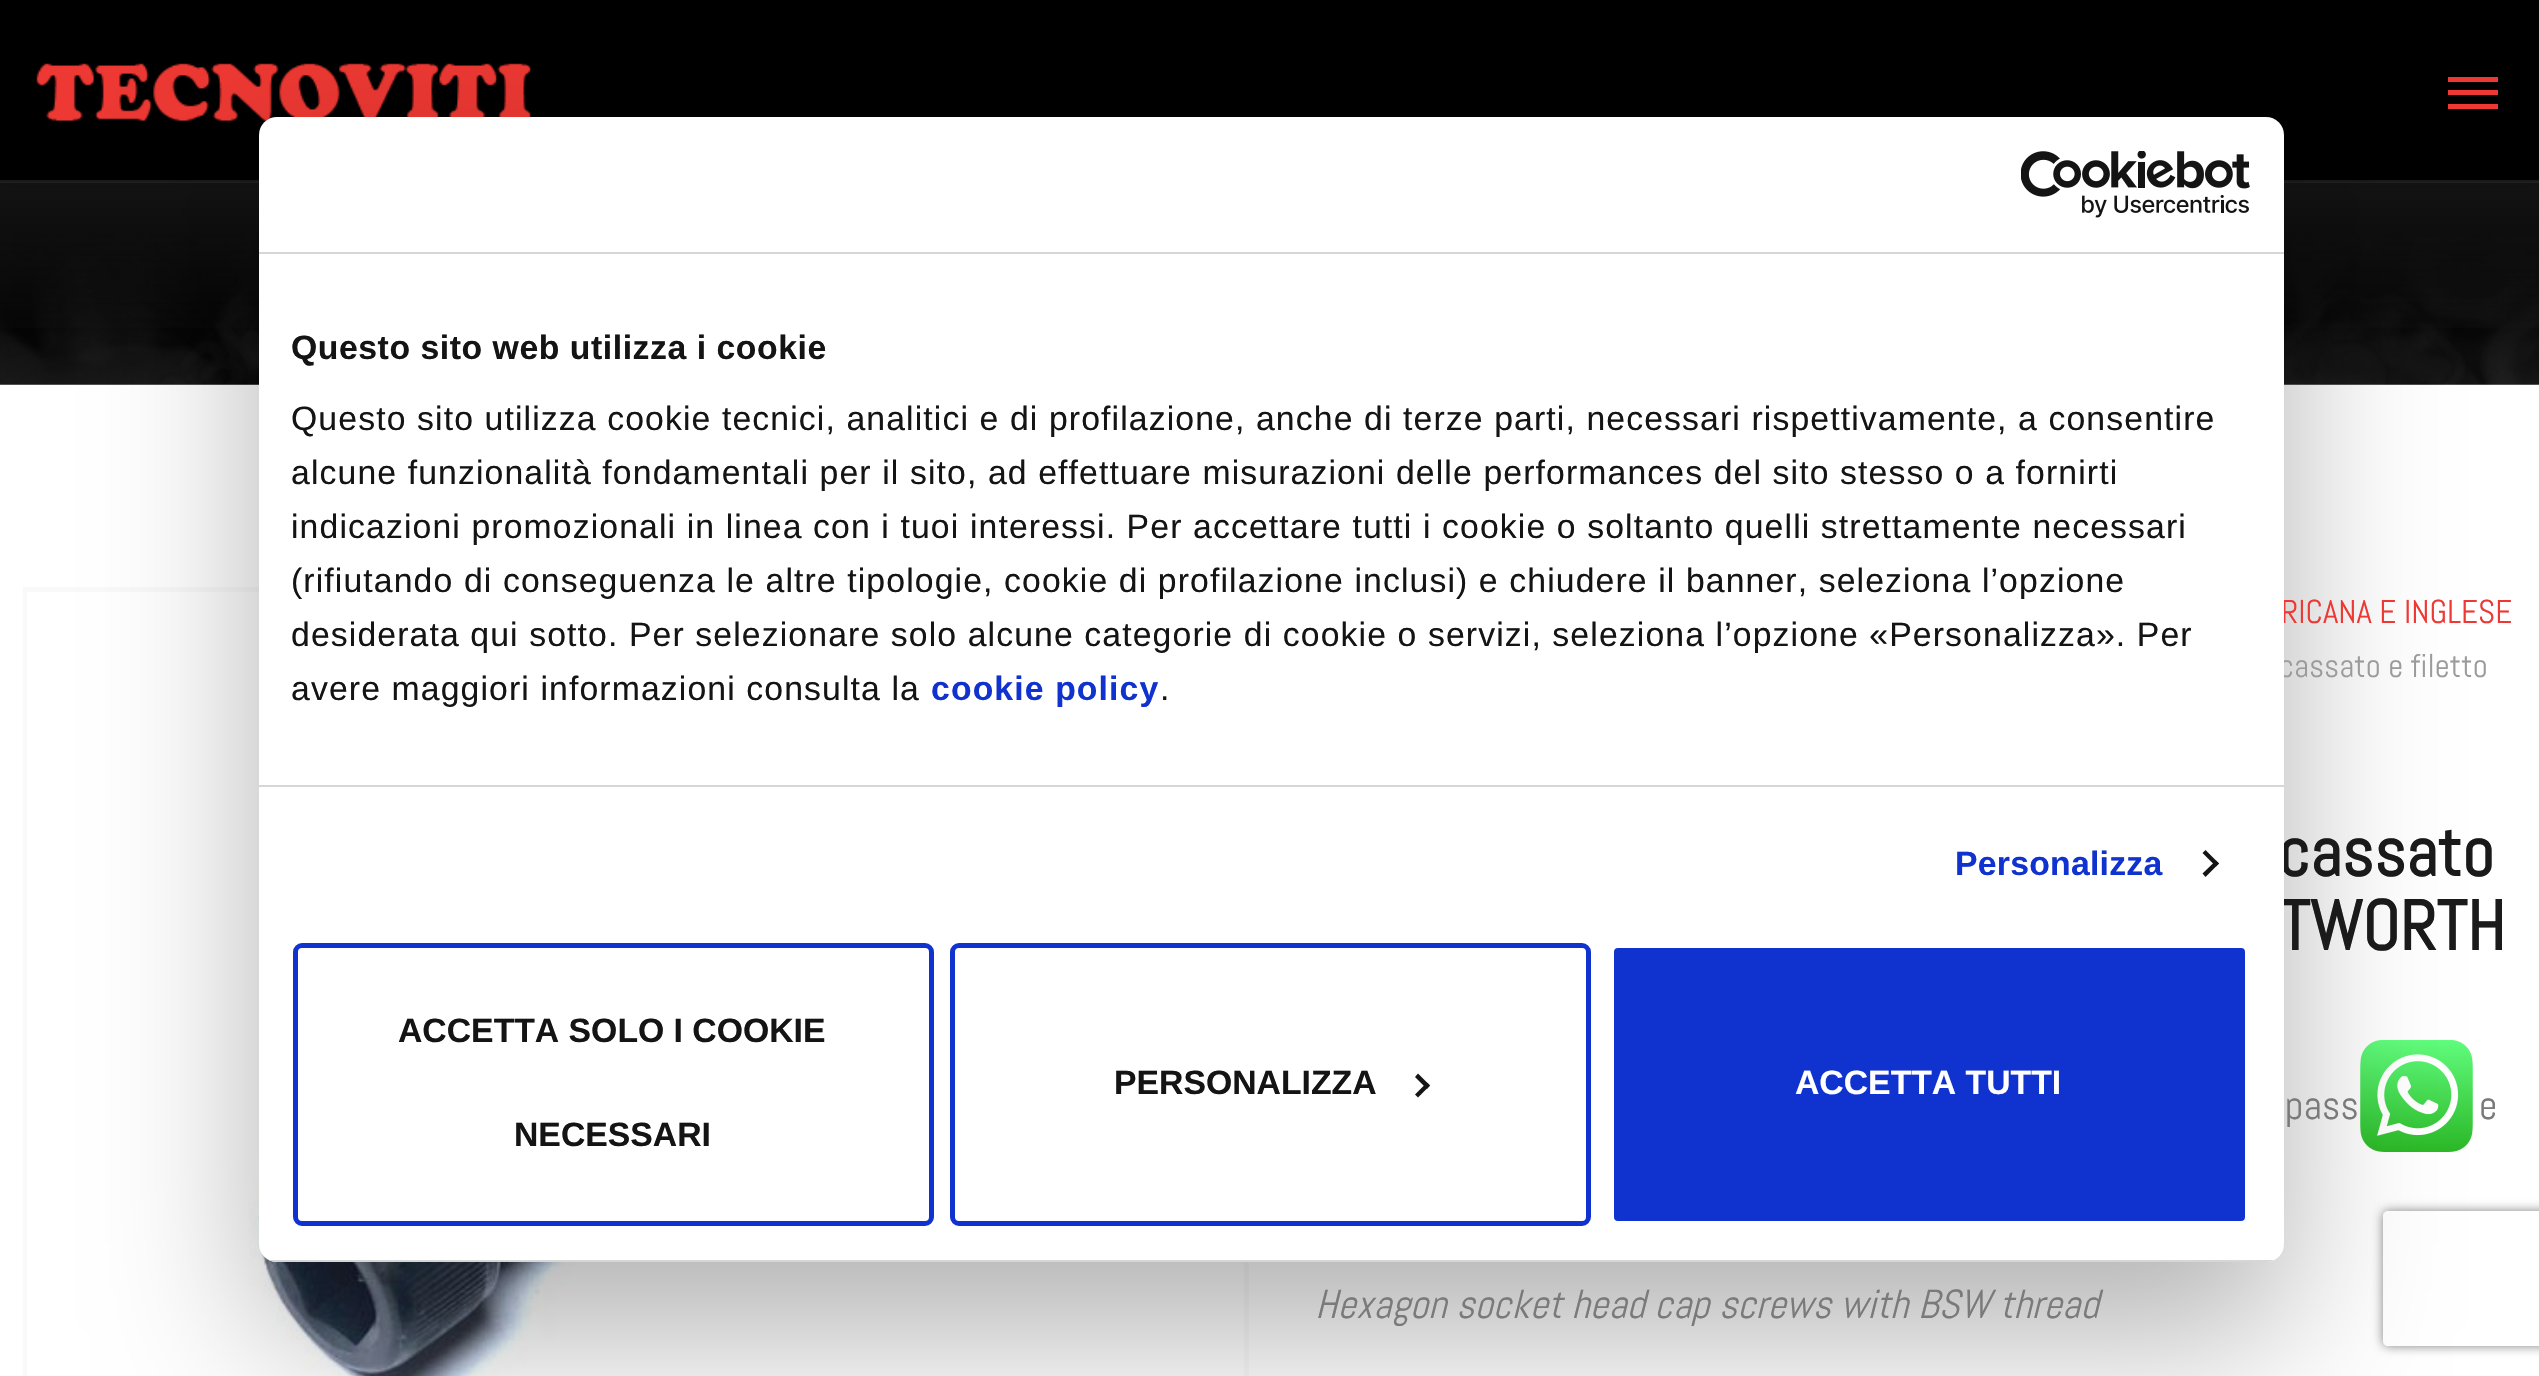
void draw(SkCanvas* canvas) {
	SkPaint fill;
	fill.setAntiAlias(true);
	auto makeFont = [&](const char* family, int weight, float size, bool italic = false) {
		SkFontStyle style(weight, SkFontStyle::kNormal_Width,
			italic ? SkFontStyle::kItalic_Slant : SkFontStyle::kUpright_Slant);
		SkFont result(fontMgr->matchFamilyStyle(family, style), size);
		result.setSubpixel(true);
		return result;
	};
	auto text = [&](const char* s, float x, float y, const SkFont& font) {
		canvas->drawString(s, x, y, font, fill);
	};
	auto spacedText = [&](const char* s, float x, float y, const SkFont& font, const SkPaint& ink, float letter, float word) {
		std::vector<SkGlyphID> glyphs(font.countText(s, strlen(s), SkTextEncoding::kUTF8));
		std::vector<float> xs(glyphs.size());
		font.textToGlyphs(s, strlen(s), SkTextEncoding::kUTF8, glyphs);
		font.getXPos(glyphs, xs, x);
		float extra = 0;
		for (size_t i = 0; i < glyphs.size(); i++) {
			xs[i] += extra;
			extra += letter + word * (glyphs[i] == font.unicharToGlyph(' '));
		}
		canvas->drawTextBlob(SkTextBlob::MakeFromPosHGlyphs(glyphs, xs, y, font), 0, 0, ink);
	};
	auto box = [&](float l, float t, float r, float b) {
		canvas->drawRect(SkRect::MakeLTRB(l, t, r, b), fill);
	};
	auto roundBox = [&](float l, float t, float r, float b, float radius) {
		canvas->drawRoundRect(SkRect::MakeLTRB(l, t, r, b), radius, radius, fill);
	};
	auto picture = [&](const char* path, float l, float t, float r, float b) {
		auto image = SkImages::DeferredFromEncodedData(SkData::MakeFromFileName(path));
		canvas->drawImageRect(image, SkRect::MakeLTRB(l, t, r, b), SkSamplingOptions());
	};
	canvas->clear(0xFFFFFFFF);
	picture("image2.png", 0, 182, 2539, 385);
	{
		const SkColor colors[] = {0xBF1B1A1A, 0x001B1A1A};
		const float stops[] = {0, 0.82f};
		const SkPoint ends[] = {{1270, 182}, {1270, 385}};
		fill.setShader(SkGradientShader::MakeLinear(ends, colors, stops, 2, SkTileMode::kClamp));
		fill.setAlpha(255);
	}
	box(0, 182, 2539, 328);
	fill.setShader(nullptr);
	fill.setColor(0x26000000);
	fill.setMaskFilter(SkMaskFilter::MakeBlur(kNormal_SkBlurStyle, 5.5f));
	canvas->drawRect(SkRect::MakeLTRB(0, 0, 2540, 182), fill);
	fill.setMaskFilter(nullptr);
	fill.setColor(0xFF000000);
	box(0, 0, 2539, 180);
	fill.setColor(0xFF1A1A1A);
	box(0, 180, 2539, 182);
	picture("image1.png", 36, 63, 531, 121);
	fill.setColor(0xFFED3833);
	box(2448, 77, 2498, 82);
	box(2448, 90, 2498, 95);
	box(2448, 104, 2498, 109);
	fill.setStyle(SkPaint::kStroke_Style);
	fill.setStrokeWidth(5);
	fill.setColor(0xFFF9F9F9);
	canvas->drawRect(SkRect::MakeLTRB(25.5f, 589.5f, 1246.5f, 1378.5f), fill);
	picture("image3.png", 27, 592, 1011, 1376);
	picture("image4.png", 2360, 1040, 2473, 1152);
	fill.setStyle(SkPaint::kFill_Style);
	fill.setColor(0x4D000000);
	fill.setMaskFilter(SkMaskFilter::MakeBlur(kNormal_SkBlurStyle, 76.5f));
	canvas->drawRoundRect(SkRect::MakeLTRB(259, 189, 2284, 1334), 18, 18, fill);
	fill.setMaskFilter(nullptr);
	canvas->save();
	canvas->clipPath(SkPathBuilder(SkPathFillType::kEvenOdd).moveTo(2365, 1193).lineTo(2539, 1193).lineTo(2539, 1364).lineTo(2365, 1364).close().moveTo(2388, 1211).lineTo(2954, 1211).cubicTo(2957, 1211, 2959, 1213, 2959, 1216).lineTo(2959, 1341).cubicTo(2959, 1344, 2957, 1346, 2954, 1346).lineTo(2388, 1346).cubicTo(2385, 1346, 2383, 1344, 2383, 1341).lineTo(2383, 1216).cubicTo(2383, 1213, 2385, 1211, 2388, 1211).close().detach(), true);
	fill.setColor(0xFF808080);
	fill.setMaskFilter(SkMaskFilter::MakeBlur(kNormal_SkBlurStyle, 5.5f));
	canvas->drawRoundRect(SkRect::MakeLTRB(2383, 1211, 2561, 1346), 5, 5, fill);
	fill.setMaskFilter(nullptr);
	canvas->restore();
	auto font1 = makeFont("Abel", 400, 33);
	fill.setColor(0xFFED3833);
	text("RICANA E INGLESE", 2281, 623, font1);
	fill.setColor(0xFF9B9B9B);
	text("cassato e filetto", 2279, 677, font1);
	auto font2 = makeFont("Abel", 700, 70);
	fill.setColor(0xFF1B1A1A);
	text("cassato", 2278, 876, font2);
	text("TWORTH", 2279, 950, font2);
	fill.setColor(0xFFFFFFFF);
	roundBox(259, 117, 2284, 1262, 18);
	fill.setColor(0xFF1032CF);
	canvas->drawRoundRect(SkRect::MakeLTRB(1611.5f, 945.5f, 2247.5f, 1223.5f), 6.5f, 6.5f, fill);
	fill.setStyle(SkPaint::kStroke_Style);
	fill.setColor(0xFFFFFFFF);
	canvas->drawRoundRect(SkRect::MakeLTRB(1611.5f, 945.5f, 2247.5f, 1223.5f), 6.5f, 6.5f, fill);
	auto font3 = makeFont("Liberation Sans", 700, 33.75f);
	fill.setStyle(SkPaint::kFill_Style);
	text("ACCETTA TUTTI", 1795, 1094, font3);
	fill.setStyle(SkPaint::kStroke_Style);
	fill.setColor(0xFF1032CF);
	canvas->drawRoundRect(SkRect::MakeLTRB(952.5f, 945.5f, 1588.5f, 1223.5f), 6.5f, 6.5f, fill);
	fill.setStyle(SkPaint::kFill_Style);
	fill.setColor(0xFF141414);
	canvas->drawPath(SkPathBuilder().moveTo(1418, 1073.5f).lineTo(1430, 1085.5f).lineTo(1427, 1089).lineTo(1415, 1077).close().detach(), fill);
	canvas->drawPath(SkPathBuilder().moveTo(1427, 1082.5f).lineTo(1430, 1085.5f).lineTo(1418, 1097.5f).lineTo(1415, 1094.5f).close().detach(), fill);
	text("PERSONALIZZA", 1114, 1094, font3);
	fill.setStyle(SkPaint::kStroke_Style);
	fill.setColor(0xFF1032CF);
	canvas->drawRoundRect(SkRect::MakeLTRB(295.5f, 945.5f, 931.5f, 1223.5f), 6.5f, 6.5f, fill);
	fill.setStyle(SkPaint::kFill_Style);
	fill.setColor(0xFF141414);
	text("NECESSARI", 514, 1146, font3);
	text("ACCETTA SOLO I COOKIE", 398, 1042, font3);
	canvas->save();
	canvas->clipPath(SkPathBuilder().moveTo(277, 117).lineTo(2266, 117).cubicTo(2276, 117, 2284, 125, 2284, 135).lineTo(2284, 1244).cubicTo(2284, 1254, 2276, 1262, 2266, 1262).lineTo(277, 1262).cubicTo(267, 1262, 259, 1254, 259, 1244).lineTo(259, 135).cubicTo(259, 125, 267, 117, 277, 117).close().detach(), true);
	fill.setColor(0xFFD6D6D6);
	box(269, 1260, 2274, 1262);
	canvas->restore();
	fill.setColor(0xFF141414);
	canvas->drawPath(SkPathBuilder().moveTo(2205.5f, 850).lineTo(2219, 863.5f).lineTo(2216, 866.5f).lineTo(2202.5f, 853).close().detach(), fill);
	canvas->drawPath(SkPathBuilder().moveTo(2216, 860.5f).lineTo(2219, 863.5f).lineTo(2205.5f, 877).lineTo(2202.5f, 873.5f).close().detach(), fill);
	auto font4 = makeFont("Liberation Sans", 400, 33.75f);
	spacedText(".", 1160, 700, font4, fill, 1.12f, 0);
	fill.setColor(0xFF1032CF);
	spacedText("cookie policy", 931, 700, font3, fill, 1.12f, 0);
	fill.setColor(0xFF141414);
	spacedText("avere maggiori informazioni consulta la", 291, 700, font4, fill, 1.12f, 0);
	spacedText("desiderata qui sotto. Per selezionare solo alcune categorie di cookie o servizi, seleziona l’opzione «Personalizza». Per", 291, 646, font4, fill, 1.12f, 0);
	spacedText("(rifiutando di conseguenza le altre tipologie, cookie di profilazione inclusi) e chiudere il banner, seleziona l’opzione", 291, 592, font4, fill, 1.12f, 0);
	spacedText("indicazioni promozionali in linea con i tuoi interessi. Per accettare tutti i cookie o soltanto quelli strettamente necessari", 291, 538, font4, fill, 1.12f, 0);
	spacedText("alcune funzionalità fondamentali per il sito, ad effettuare misurazioni delle performances del sito stesso o a fornirti", 291, 484, font4, fill, 1.12f, 0);
	spacedText("Questo sito utilizza cookie tecnici, analitici e di profilazione, anche di terze parti, necessari rispettivamente, a consentire", 291, 430, font4, fill, 1.12f, 0);
	spacedText("Questo sito web utilizza i cookie", 291, 359, font3, fill, 0.55f, 0);
	fill.setColor(0xFFD6D6D6);
	box(259, 785, 2284, 787);
	fill.setColor(0xFF1032CF);
	spacedText("Personalizza", 1955, 875, font3, fill, 0.25f, 0);
	picture("image0.png", 2021, 151, 2250, 218);
	fill.setColor(0xFFD6D6D6);
	box(259, 252, 2284, 254);
	auto font5 = makeFont("Abel", 400, 40.5f);
	fill.setColor(0xFF7A7A7A);
	text("pass", 2285, 1119, font5);
	text("e", 2479, 1119, font5);
	auto font6 = makeFont("Abel", 400, 40.5f, true);
	text("Hexagon socket head cap screws with BSW thread", 1315, 1318, font6);
}
